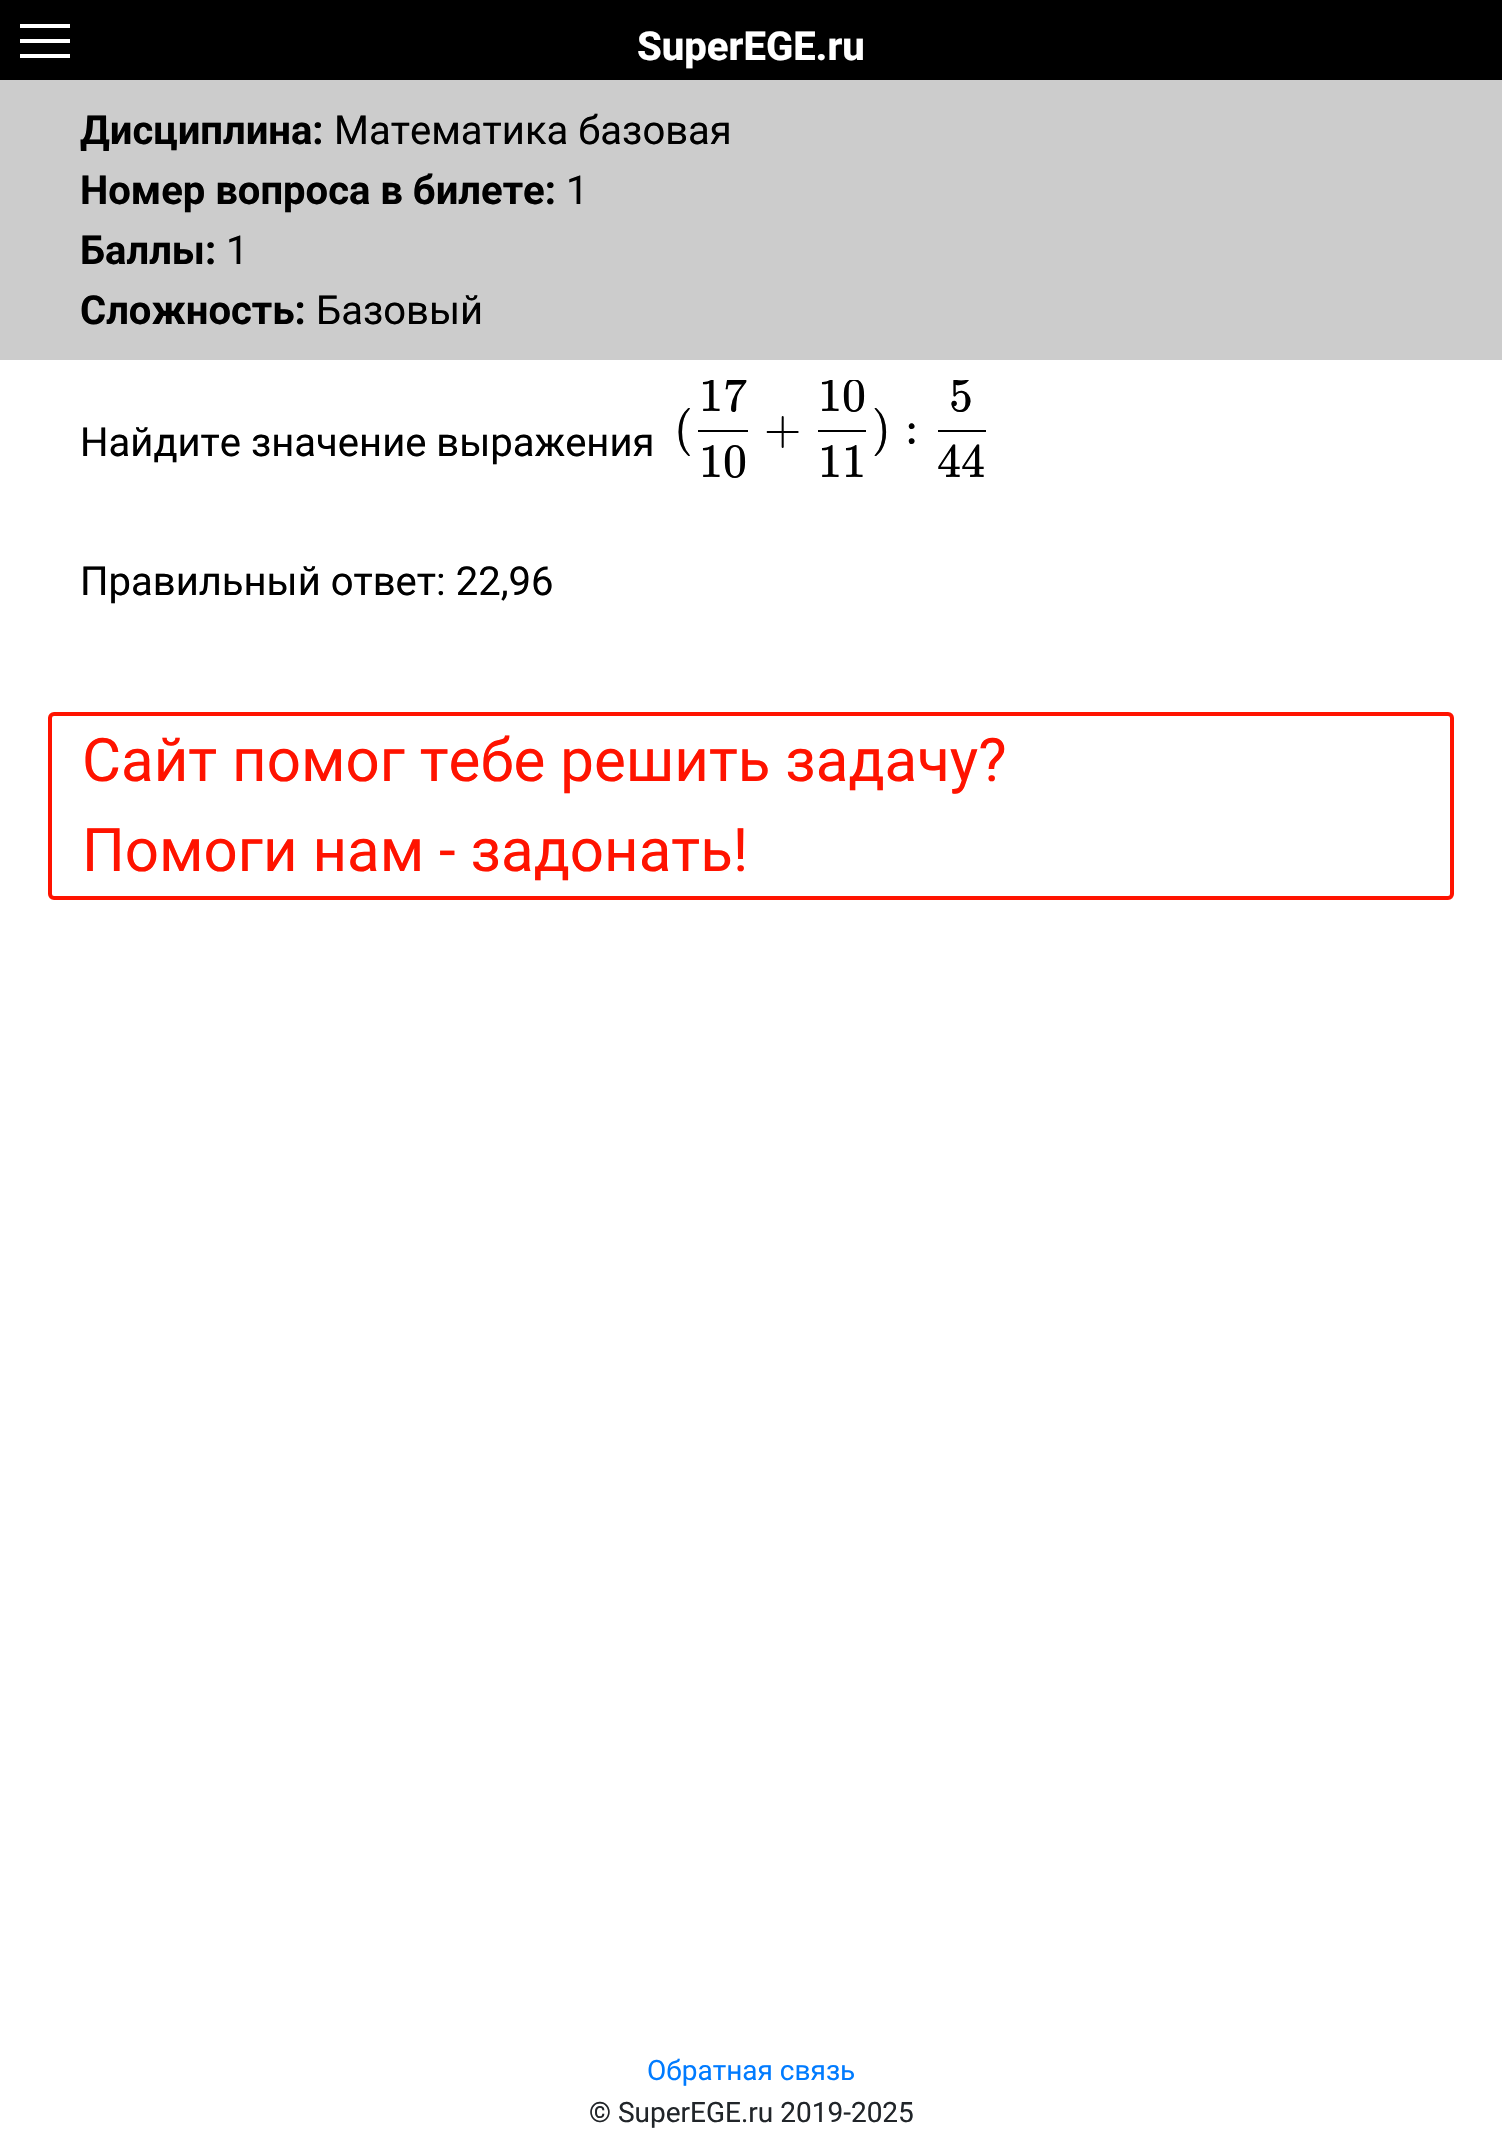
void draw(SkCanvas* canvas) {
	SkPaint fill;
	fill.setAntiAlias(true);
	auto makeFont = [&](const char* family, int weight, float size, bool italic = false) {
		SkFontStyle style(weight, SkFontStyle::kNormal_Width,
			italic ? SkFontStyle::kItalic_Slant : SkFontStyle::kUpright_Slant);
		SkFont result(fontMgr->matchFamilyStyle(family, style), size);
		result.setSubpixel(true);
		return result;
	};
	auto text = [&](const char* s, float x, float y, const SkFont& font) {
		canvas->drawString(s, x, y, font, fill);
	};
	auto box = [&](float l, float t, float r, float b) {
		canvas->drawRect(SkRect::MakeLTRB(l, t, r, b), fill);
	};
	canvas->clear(0xFFFFFFFF);
	fill.setColor(0xFF000000);
	box(0, 0, 1502, 80);
	fill.setColor(0xFFFFFFFF);
	canvas->drawPath(SkPathBuilder().moveTo(20, 24).lineTo(20, 28).lineTo(70, 28).lineTo(70, 24).close().moveTo(20, 39).lineTo(20, 43).lineTo(70, 43).lineTo(70, 39).close().moveTo(20, 54).lineTo(20, 58).lineTo(70, 58).lineTo(70, 54).close().detach(), fill);
	fill.setColor(0xFFCCCCCC);
	box(0, 80, 1502, 360);
	fill.setColor(0xFF000000);
	box(698, 430, 748, 432);
	box(818, 430, 866, 432);
	box(938, 430, 986, 432);
	fill.setStyle(SkPaint::kStroke_Style);
	fill.setStrokeWidth(4);
	fill.setColor(0xFFFF1300);
	canvas->drawRoundRect(SkRect::MakeLTRB(50, 714, 1452, 898), 4, 4, fill);
	auto font1 = makeFont("Roboto", 800, 40);
	fill.setStyle(SkPaint::kFill_Style);
	fill.setColor(0xFFFFFFFF);
	text("SuperEGE.ru", 637, 60, font1);
	auto font2 = makeFont("Roboto", 700, 40);
	fill.setColor(0xFF000000);
	text("Дисциплина:", 80, 144, font2);
	auto font3 = makeFont("Roboto", 400, 40);
	text("Математика базовая", 334, 144, font3);
	text("Номер вопроса в билете:", 80, 204, font2);
	text("1", 566, 204, font3);
	text("Баллы:", 80, 264, font2);
	text("1", 226, 264, font3);
	text("Сложность:", 80, 324, font2);
	text("Базовый", 316, 324, font3);
	text("Найдите значение выражения", 80, 456, font3);
	auto font4 = makeFont("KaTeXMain", 400, 48);
	text("(", 674, 444, font4);
	canvas->save();
	canvas->clipRect(SkRect::MakeLTRB(674, 380, 812, 478));
	text("17", 699, 411, font4);
	canvas->restore();
	text("10", 699, 477, font4);
	text("+", 764, 444, font4);
	canvas->save();
	canvas->clipRect(SkRect::MakeLTRB(812, 380, 932, 478));
	text("10", 818, 411, font4);
	canvas->restore();
	text("11", 818, 477, font4);
	text(")", 872, 444, font4);
	text(":", 905, 444, font4);
	canvas->save();
	canvas->clipRect(SkRect::MakeLTRB(932, 380, 992, 478));
	text("5", 949, 411, font4);
	canvas->restore();
	text("44", 937, 477, font4);
	text("Правильный ответ: 22,96", 80, 595, font3);
	auto font5 = makeFont("Roboto", 400, 60);
	fill.setColor(0xFFFF1300);
	text("Сайт помог тебе решить задачу?", 82, 781, font5);
	text("Помоги нам - задонать!", 82, 871, font5);
	auto font6 = makeFont("Roboto", 400, 28);
	fill.setColor(0xFF007BFF);
	text("Обратная связь", 647, 2080, font6);
	fill.setColor(0xFF212529);
	text("© SuperEGE.ru 2019-2025", 589, 2122, font6);
}
